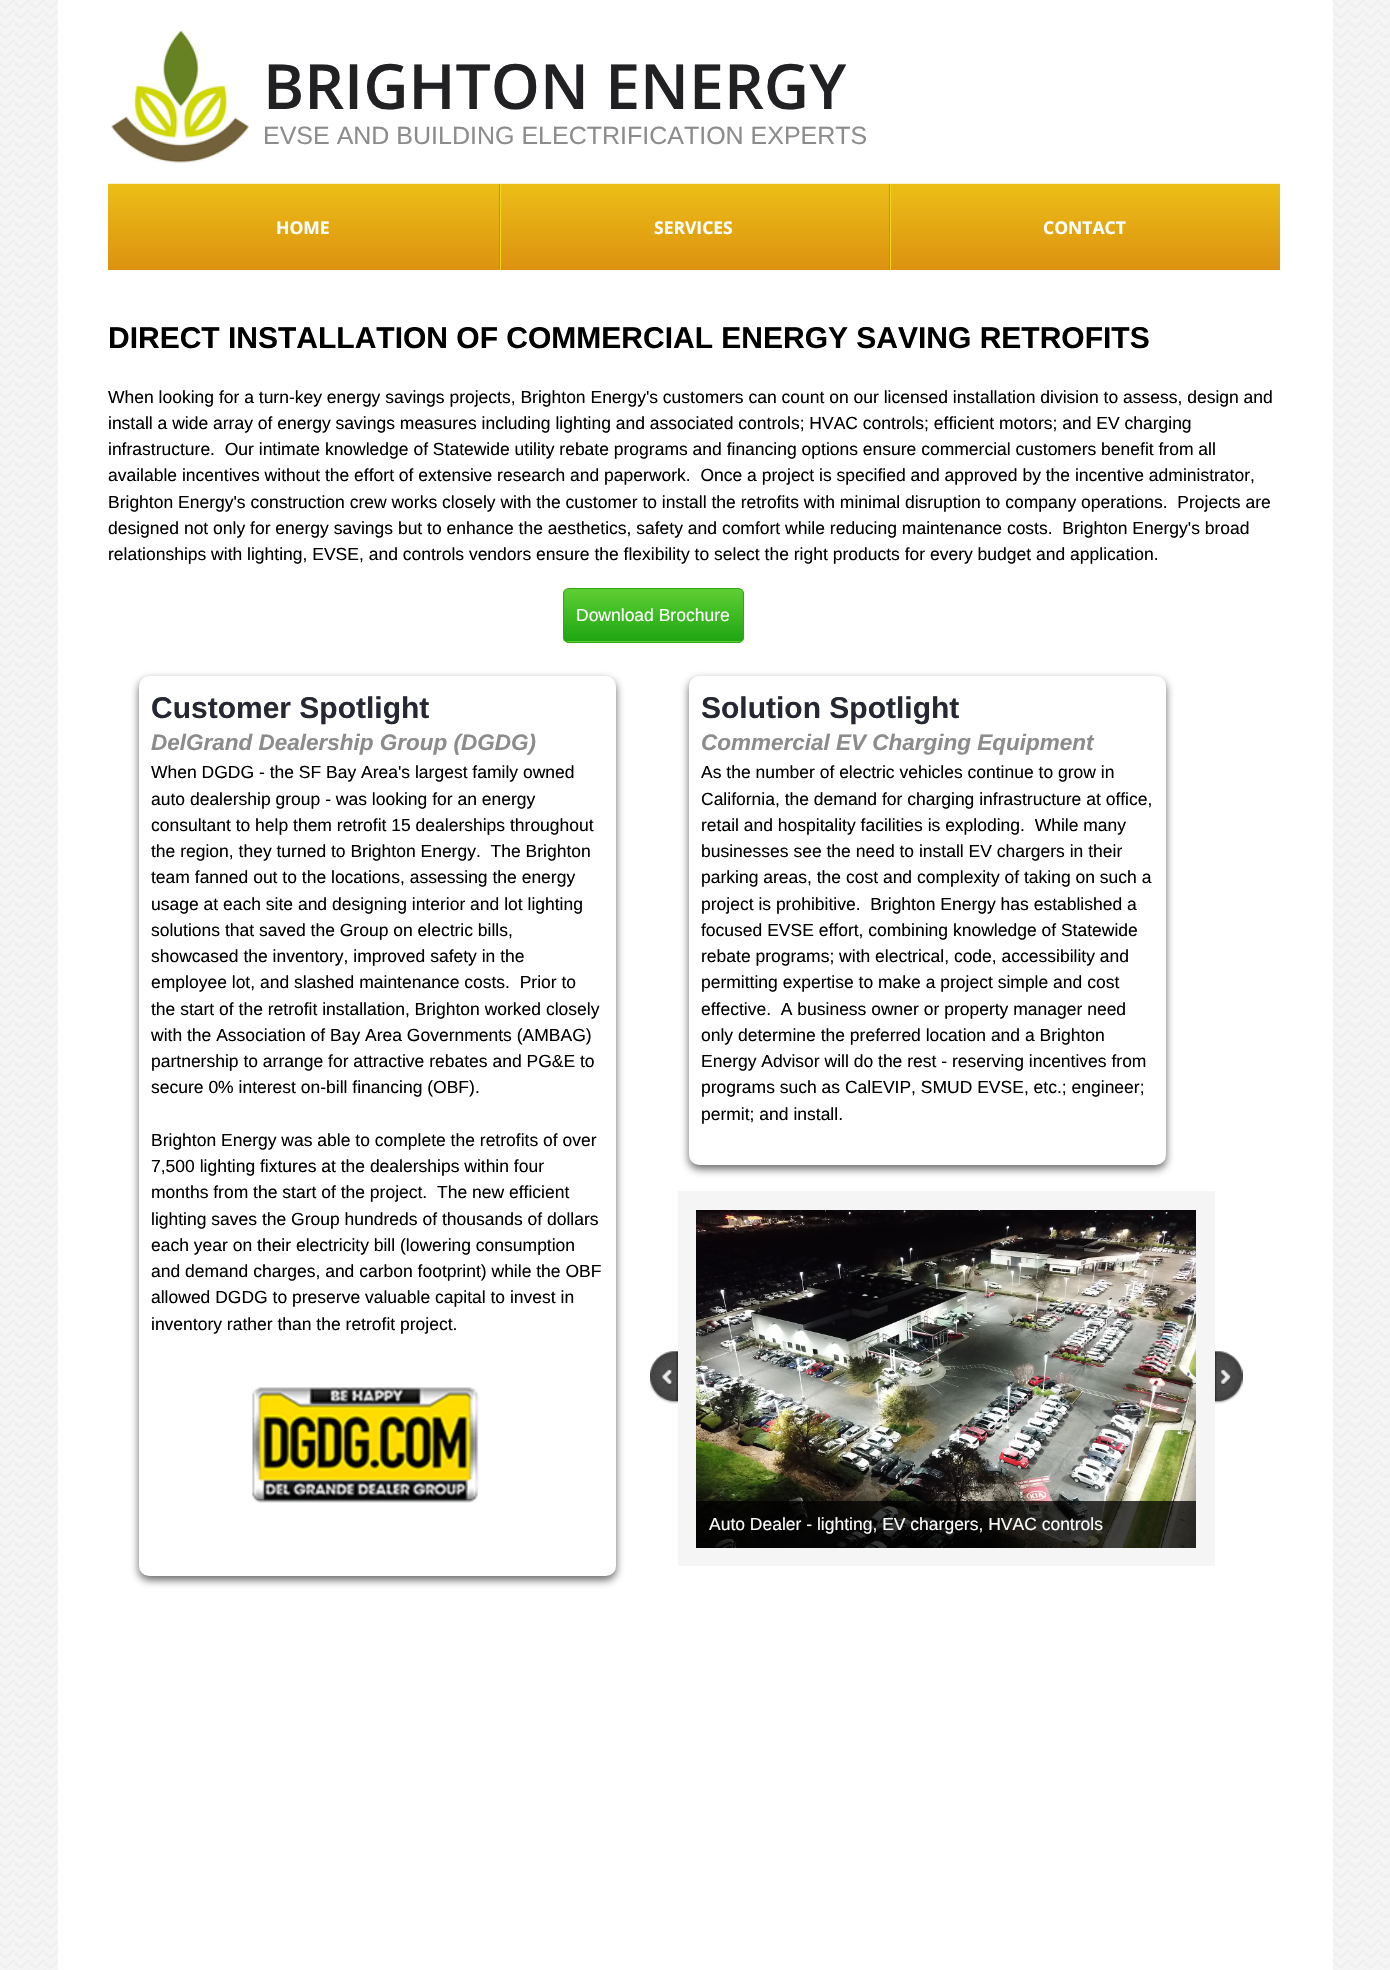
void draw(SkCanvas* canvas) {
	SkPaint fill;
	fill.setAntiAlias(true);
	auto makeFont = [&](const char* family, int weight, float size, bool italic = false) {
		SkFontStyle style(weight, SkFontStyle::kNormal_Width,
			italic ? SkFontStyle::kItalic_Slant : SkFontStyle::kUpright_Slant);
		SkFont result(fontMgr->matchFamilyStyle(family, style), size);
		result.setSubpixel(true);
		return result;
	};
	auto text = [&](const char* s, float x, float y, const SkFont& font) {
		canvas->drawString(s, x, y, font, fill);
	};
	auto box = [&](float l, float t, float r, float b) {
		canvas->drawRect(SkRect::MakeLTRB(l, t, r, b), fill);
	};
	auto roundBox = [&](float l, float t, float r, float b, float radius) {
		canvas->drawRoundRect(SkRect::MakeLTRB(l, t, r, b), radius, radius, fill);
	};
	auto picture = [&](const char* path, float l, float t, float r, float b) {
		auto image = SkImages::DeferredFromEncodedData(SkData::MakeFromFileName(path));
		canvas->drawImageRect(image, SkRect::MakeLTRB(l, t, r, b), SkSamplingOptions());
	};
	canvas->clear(0xFFFFFFFF);
	picture("image0.png", 0, 0, 1390, 1970);
	fill.setColor(0xFFFFFFFF);
	box(58, 0, 1333, 1970);
	picture("image1.png", 111, 30, 249, 163);
	{
		const SkColor colors[] = {0xFFEBBE16, 0xFFDD9210};
		const float stops[] = {0, 1};
		const SkPoint ends[] = {{694, 184}, {694, 270}};
		fill.setShader(SkGradientShader::MakeLinear(ends, colors, stops, 2, SkTileMode::kClamp));
		fill.setAlpha(255);
	}
	box(108, 184, 1280, 270);
	fill.setShader(nullptr);
	fill.setColor(0xFFFBF2D0);
	box(108, 183, 1280, 184);
	fill.setColor(0xFFF3D71D);
	box(500, 184, 501, 270);
	fill.setColor(0xFFD9850C);
	box(499, 184, 500, 270);
	fill.setColor(0xFFF3D71D);
	box(890, 184, 891, 270);
	fill.setColor(0xFFD9850C);
	box(889, 184, 890, 270);
	canvas->save();
	canvas->clipPath(SkPathBuilder().moveTo(569, 588).lineTo(738, 588).cubicTo(741.5f, 588, 744, 590.5f, 744, 594).lineTo(744, 637).cubicTo(744, 640.5f, 741.5f, 643, 738, 643).lineTo(569, 643).cubicTo(565.5f, 643, 563, 640.5f, 563, 637).lineTo(563, 594).cubicTo(563, 590.5f, 565.5f, 588, 569, 588).close().detach(), true);
	{
		const SkColor colors[] = {0xFF5FCF34, 0xFF1EA612};
		const float stops[] = {0, 1};
		const SkPoint ends[] = {{653, 589}, {653, 641}};
		fill.setShader(SkGradientShader::MakeLinear(ends, colors, stops, 2, SkTileMode::kClamp));
		fill.setAlpha(255);
	}
	box(563, 589, 744, 641);
	{
		const SkColor colors[] = {0xFF5FCF34, 0xFF1EA612};
		const float stops[] = {0, 1};
		const SkPoint ends[] = {{653, 641}, {653, 694}};
		fill.setShader(SkGradientShader::MakeLinear(ends, colors, stops, 2, SkTileMode::kClamp));
		fill.setAlpha(255);
	}
	box(563, 641, 744, 643);
	canvas->restore();
	fill.setStyle(SkPaint::kStroke_Style);
	fill.setStrokeWidth(1);
	fill.setShader(nullptr);
	fill.setColor(0xFF30A612);
	canvas->drawRoundRect(SkRect::MakeLTRB(563.5f, 588.5f, 743.5f, 642.5f), 5.5f, 5.5f, fill);
	fill.setStyle(SkPaint::kFill_Style);
	fill.setColor(0xBF323232);
	fill.setMaskFilter(SkMaskFilter::MakeBlur(kNormal_SkBlurStyle, 4.5f));
	canvas->drawRoundRect(SkRect::MakeLTRB(139, 680, 616, 1580), 10, 10, fill);
	fill.setMaskFilter(nullptr);
	fill.setColor(0xFFFFFFFF);
	roundBox(139, 676, 616, 1576, 10);
	fill.setColor(0xBF323232);
	fill.setMaskFilter(SkMaskFilter::MakeBlur(kNormal_SkBlurStyle, 4.5f));
	canvas->drawRoundRect(SkRect::MakeLTRB(689, 680, 1166, 1169), 10, 10, fill);
	fill.setMaskFilter(nullptr);
	fill.setColor(0xFFFFFFFF);
	roundBox(689, 676, 1166, 1165, 10);
	picture("image2.png", 252, 1387, 479, 1503);
	picture("image3.png", 650, 1351, 678, 1404);
	picture("image4.png", 1215, 1351, 1243, 1404);
	fill.setStyle(SkPaint::kStroke_Style);
	fill.setStrokeWidth(19);
	fill.setColor(0xFFF5F5F5);
	canvas->drawRect(SkRect::MakeLTRB(687.5f, 1200.5f, 1205.5f, 1556.5f), fill);
	picture("image5.png", 696, 1210, 1196, 1548);
	fill.setStyle(SkPaint::kFill_Style);
	fill.setColor(0xBF000000);
	box(696, 1501, 1196, 1548);
	auto font1 = makeFont("Open Sans", 600, 62.5f);
	fill.setColor(0xFF212124);
	text("BRIGHTON ENERGY", 263, 109, font1);
	auto font2 = makeFont("Liberation Sans", 400, 25);
	fill.setColor(0xFF8C8C8C);
	text("EVSE AND BUILDING ELECTRIFICATION EXPERTS", 263, 144, font2);
	auto font3 = makeFont("Open Sans", 700, 17.5f);
	fill.setColor(0xFFFFFFFF);
	text("HOME", 276, 234, font3);
	text("SERVICES", 654, 234, font3);
	text("CONTACT", 1043, 234, font3);
	auto font4 = makeFont("Liberation Sans", 700, 30);
	fill.setColor(0xFF000000);
	text("DIRECT INSTALLATION OF COMMERCIAL ENERGY SAVING RETROFITS", 108, 348, font4);
	auto font5 = makeFont("Liberation Sans", 400, 17.5f);
	text("When looking for a turn-key energy savings projects, Brighton Energy's customers can count on our licensed installation division to assess, design and", 108, 403, font5);
	text("install a wide array of energy savings measures including lighting and associated controls; HVAC controls; efficient motors; and EV charging", 108, 429, font5);
	text("infrastructure.  Our intimate knowledge of Statewide utility rebate programs and financing options ensure commercial customers benefit from all", 108, 455, font5);
	text("available incentives without the effort of extensive research and paperwork.  Once a project is specified and approved by the incentive administrator,", 108, 481, font5);
	text("Brighton Energy's construction crew works closely with the customer to install the retrofits with minimal disruption to company operations.  Projects are", 108, 508, font5);
	text("designed not only for energy savings but to enhance the aesthetics, safety and comfort while reducing maintenance costs.  Brighton Energy's broad", 108, 534, font5);
	text("relationships with lighting, EVSE, and controls vendors ensure the flexibility to select the right products for every budget and application.", 108, 560, font5);
	fill.setColor(0xFFFFFFFF);
	text("Download Brochure", 576, 621, font5);
	fill.setColor(0xFF252832);
	text("Customer Spotlight", 151, 718, font4);
	auto font6 = makeFont("Liberation Sans", 700, 22.5f, true);
	fill.setColor(0xFF8C8C8C);
	text("DelGrand Dealership Group (DGDG)", 151, 750, font6);
	fill.setColor(0xFF000000);
	text("When DGDG - the SF Bay Area's largest family owned", 151, 778, font5);
	text("auto dealership group - was looking for an energy", 151, 805, font5);
	text("consultant to help them retrofit 15 dealerships throughout", 151, 831, font5);
	text("the region, they turned to Brighton Energy.  The Brighton", 151, 857, font5);
	text("team fanned out to the locations, assessing the energy", 151, 883, font5);
	text("usage at each site and designing interior and lot lighting", 151, 910, font5);
	text("solutions that saved the Group on electric bills,", 151, 936, font5);
	text("showcased the inventory, improved safety in the", 151, 962, font5);
	text("employee lot, and slashed maintenance costs.  Prior to", 151, 988, font5);
	text("the start of the retrofit installation, Brighton worked closely", 151, 1015, font5);
	text("with the Association of Bay Area Governments (AMBAG)", 151, 1041, font5);
	text("partnership to arrange for attractive rebates and PG&E to", 151, 1067, font5);
	text("secure 0% interest on-bill financing (OBF).", 151, 1093, font5);
	text("Brighton Energy was able to complete the retrofits of over", 151, 1146, font5);
	text("7,500 lighting fixtures at the dealerships within four", 151, 1172, font5);
	text("months from the start of the project.  The new efficient", 151, 1198, font5);
	text("lighting saves the Group hundreds of thousands of dollars", 151, 1225, font5);
	text("each year on their electricity bill (lowering consumption", 151, 1251, font5);
	text("and demand charges, and carbon footprint) while the OBF", 151, 1277, font5);
	text("allowed DGDG to preserve valuable capital to invest in", 151, 1303, font5);
	text("inventory rather than the retrofit project.", 151, 1330, font5);
	fill.setColor(0xFF252832);
	text("Solution Spotlight", 701, 718, font4);
	fill.setColor(0xFF8C8C8C);
	text("Commercial EV Charging Equipment", 701, 750, font6);
	fill.setColor(0xFF000000);
	text("As the number of electric vehicles continue to grow in", 701, 778, font5);
	text("California, the demand for charging infrastructure at office,", 701, 805, font5);
	text("retail and hospitality facilities is exploding.  While many", 701, 831, font5);
	text("businesses see the need to install EV chargers in their", 701, 857, font5);
	text("parking areas, the cost and complexity of taking on such a", 701, 883, font5);
	text("project is prohibitive.  Brighton Energy has established a", 701, 910, font5);
	text("focused EVSE effort, combining knowledge of Statewide", 701, 936, font5);
	text("rebate programs; with electrical, code, accessibility and", 701, 962, font5);
	text("permitting expertise to make a project simple and cost", 701, 988, font5);
	text("effective.  A business owner or property manager need", 701, 1015, font5);
	text("only determine the preferred location and a Brighton", 701, 1041, font5);
	text("Energy Advisor will do the rest - reserving incentives from", 701, 1067, font5);
	text("programs such as CalEVIP, SMUD EVSE, etc.; engineer;", 701, 1093, font5);
	text("permit; and install.", 701, 1120, font5);
	fill.setColor(0xFFFFFFFF);
	text("Auto Dealer - lighting, EV chargers, HVAC controls", 709, 1530, font5);
}
